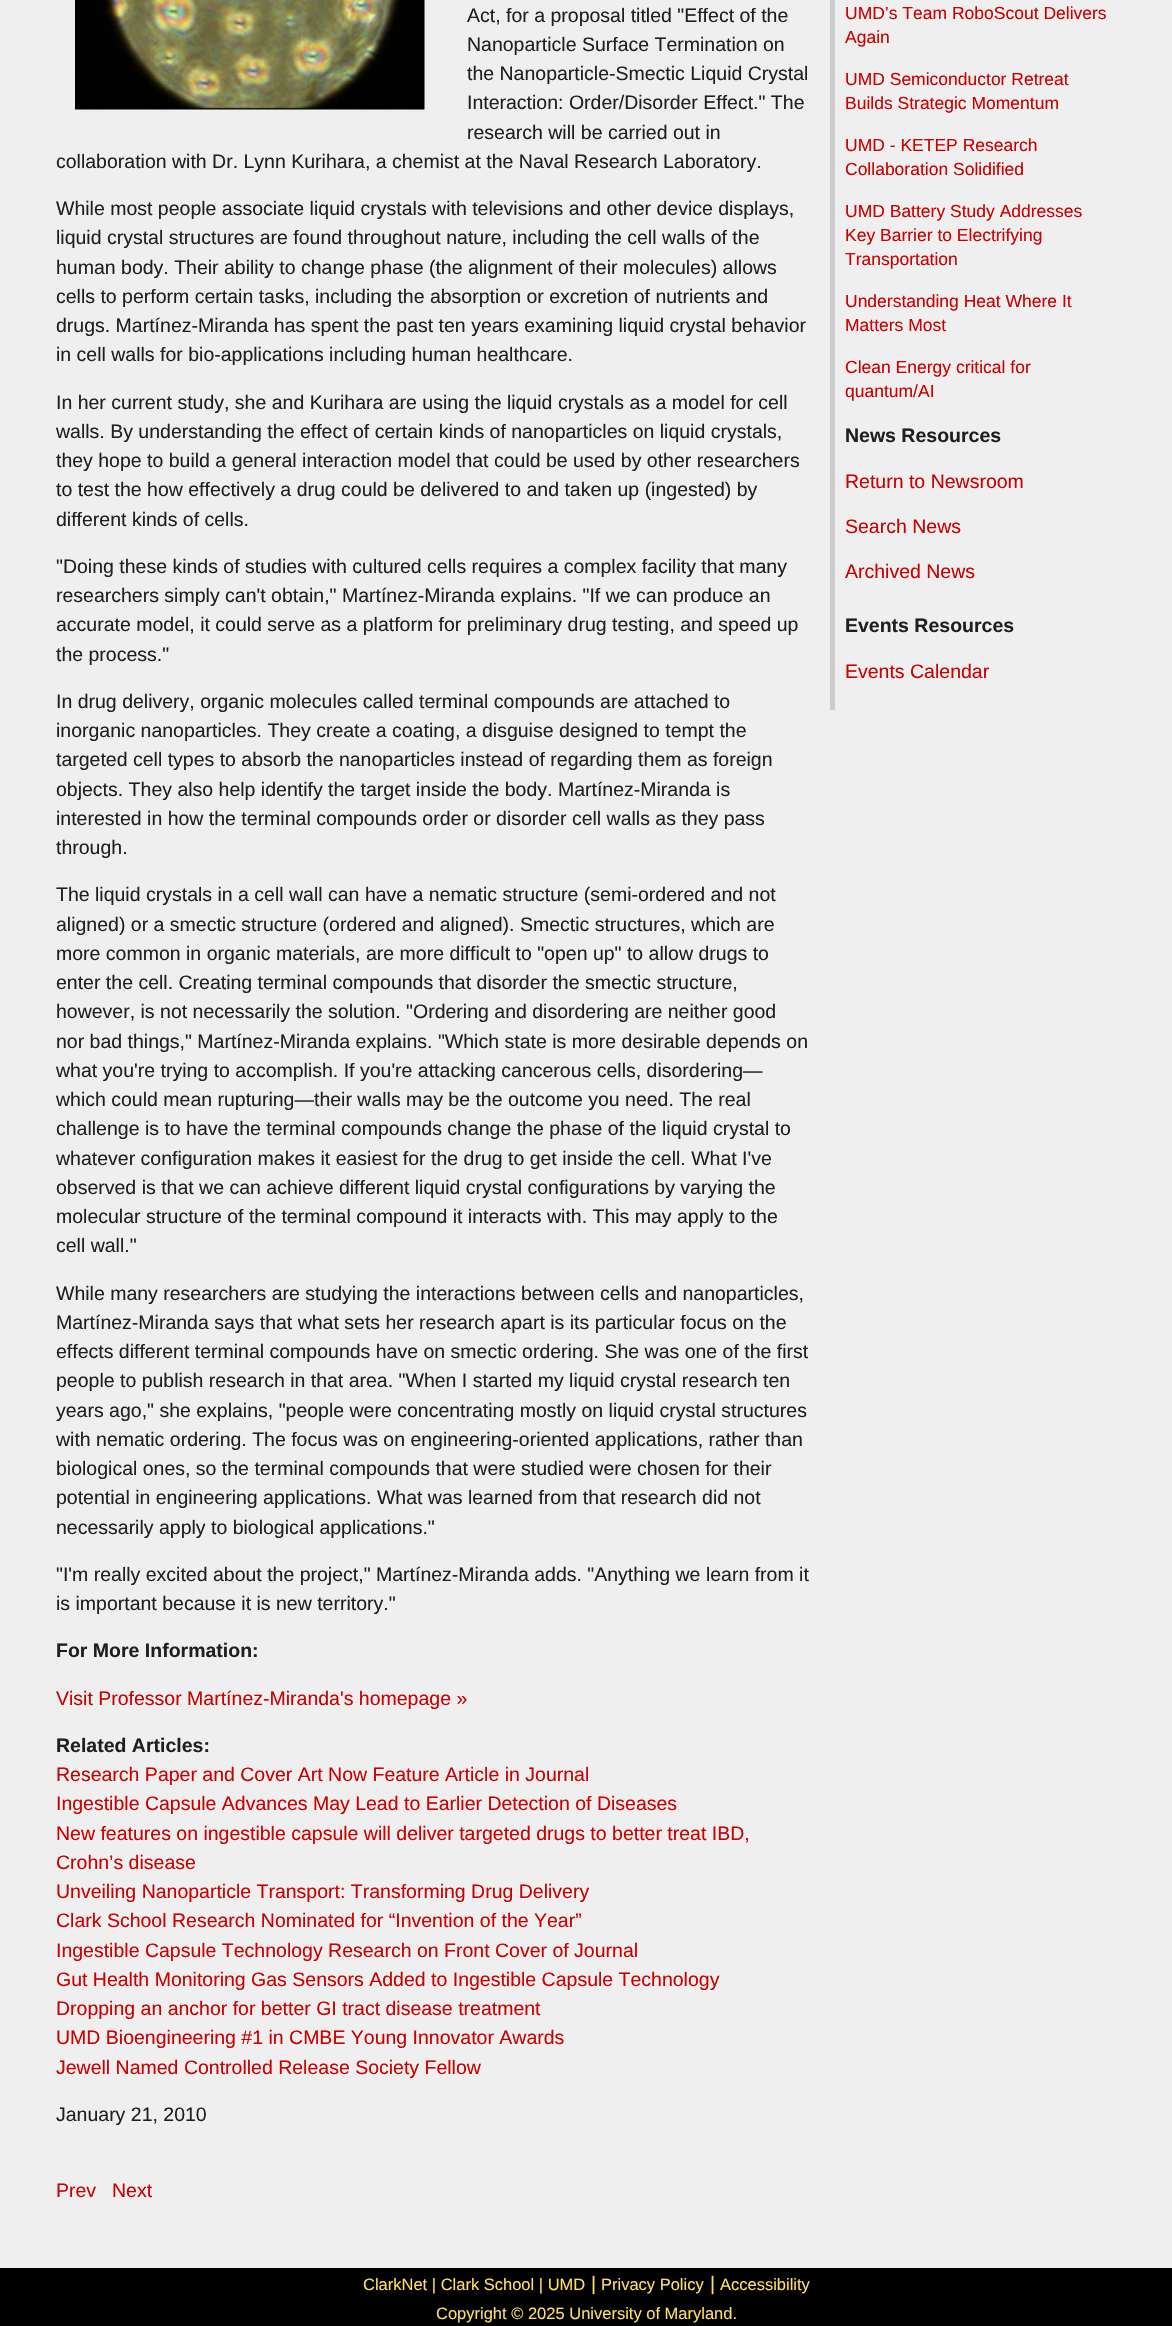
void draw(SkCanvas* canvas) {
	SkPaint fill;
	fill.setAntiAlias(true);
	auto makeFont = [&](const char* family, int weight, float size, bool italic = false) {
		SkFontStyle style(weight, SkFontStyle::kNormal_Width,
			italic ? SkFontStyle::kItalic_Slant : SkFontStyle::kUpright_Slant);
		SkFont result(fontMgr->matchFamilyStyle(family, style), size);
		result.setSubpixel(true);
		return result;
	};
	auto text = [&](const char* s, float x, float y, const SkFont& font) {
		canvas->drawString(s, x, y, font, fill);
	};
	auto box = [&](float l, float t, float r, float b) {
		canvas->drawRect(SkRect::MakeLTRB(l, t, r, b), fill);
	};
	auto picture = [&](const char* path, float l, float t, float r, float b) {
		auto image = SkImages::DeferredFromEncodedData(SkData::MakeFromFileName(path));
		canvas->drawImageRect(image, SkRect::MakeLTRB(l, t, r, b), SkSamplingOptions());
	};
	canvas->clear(0xFF000000);
	fill.setColor(0xFFEFEFEF);
	box(0, 0, 1172, 2268);
	picture("image0.png", 75, 0, 425, 110);
	fill.setColor(0xFFCCCCCC);
	box(830, 0, 835, 710);
	auto font1 = makeFont("Liberation Sans", 400, 19.5f);
	fill.setColor(0xFF1F1F1F);
	text("Act, for a proposal titled \"Effect of the", 467, 22, font1);
	text("Nanoparticle Surface Termination on", 467, 51, font1);
	text("the Nanoparticle-Smectic Liquid Crystal", 467, 80, font1);
	text("Interaction: Order/Disorder Effect.\" The", 467, 109, font1);
	text("research will be carried out in", 467, 139, font1);
	text("collaboration with Dr. Lynn Kurihara, a chemist at the Naval Research Laboratory.", 56, 168, font1);
	text("While most people associate liquid crystals with televisions and other device displays,", 56, 215, font1);
	text("liquid crystal structures are found throughout nature, including the cell walls of the", 56, 244, font1);
	text("human body. Their ability to change phase (the alignment of their molecules) allows", 56, 274, font1);
	text("cells to perform certain tasks, including the absorption or excretion of nutrients and", 56, 303, font1);
	text("drugs. Martínez-Miranda has spent the past ten years examining liquid crystal behavior", 56, 332, font1);
	text("in cell walls for bio-applications including human healthcare.", 56, 361, font1);
	text("In her current study, she and Kurihara are using the liquid crystals as a model for cell", 56, 409, font1);
	text("walls. By understanding the effect of certain kinds of nanoparticles on liquid crystals,", 56, 438, font1);
	text("they hope to build a general interaction model that could be used by other researchers", 56, 467, font1);
	text("to test the how effectively a drug could be delivered to and taken up (ingested) by", 56, 496, font1);
	text("different kinds of cells.", 56, 526, font1);
	text("\"Doing these kinds of studies with cultured cells requires a complex facility that many", 56, 573, font1);
	text("researchers simply can't obtain,\" Martínez-Miranda explains. \"If we can produce an", 56, 602, font1);
	text("accurate model, it could serve as a platform for preliminary drug testing, and speed up", 56, 631, font1);
	text("the process.\"", 56, 661, font1);
	text("In drug delivery, organic molecules called terminal compounds are attached to", 56, 708, font1);
	text("inorganic nanoparticles. They create a coating, a disguise designed to tempt the", 56, 737, font1);
	text("targeted cell types to absorb the nanoparticles instead of regarding them as foreign", 56, 766, font1);
	text("objects. They also help identify the target inside the body. Martínez-Miranda is", 56, 796, font1);
	text("interested in how the terminal compounds order or disorder cell walls as they pass", 56, 825, font1);
	text("through.", 56, 854, font1);
	text("The liquid crystals in a cell wall can have a nematic structure (semi-ordered and not", 56, 901, font1);
	text("aligned) or a smectic structure (ordered and aligned). Smectic structures, which are", 56, 931, font1);
	text("more common in organic materials, are more difficult to \"open up\" to allow drugs to", 56, 960, font1);
	text("enter the cell. Creating terminal compounds that disorder the smectic structure,", 56, 989, font1);
	text("however, is not necessarily the solution. \"Ordering and disordering are neither good", 56, 1018, font1);
	text("nor bad things,\" Martínez-Miranda explains. \"Which state is more desirable depends on", 56, 1048, font1);
	text("what you're trying to accomplish. If you're attacking cancerous cells, disordering—", 56, 1077, font1);
	text("which could mean rupturing—their walls may be the outcome you need. The real", 56, 1106, font1);
	text("challenge is to have the terminal compounds change the phase of the liquid crystal to", 56, 1135, font1);
	text("whatever configuration makes it easiest for the drug to get inside the cell. What I've", 56, 1165, font1);
	text("observed is that we can achieve different liquid crystal configurations by varying the", 56, 1194, font1);
	text("molecular structure of the terminal compound it interacts with. This may apply to the", 56, 1223, font1);
	text("cell wall.\"", 56, 1252, font1);
	text("While many researchers are studying the interactions between cells and nanoparticles,", 56, 1300, font1);
	text("Martínez-Miranda says that what sets her research apart is its particular focus on the", 56, 1329, font1);
	text("effects different terminal compounds have on smectic ordering. She was one of the first", 56, 1358, font1);
	text("people to publish research in that area. \"When I started my liquid crystal research ten", 56, 1387, font1);
	text("years ago,\" she explains, \"people were concentrating mostly on liquid crystal structures", 56, 1417, font1);
	text("with nematic ordering. The focus was on engineering-oriented applications, rather than", 56, 1446, font1);
	text("biological ones, so the terminal compounds that were studied were chosen for their", 56, 1475, font1);
	text("potential in engineering applications. What was learned from that research did not", 56, 1504, font1);
	text("necessarily apply to biological applications.\"", 56, 1534, font1);
	text("\"I'm really excited about the project,\" Martínez-Miranda adds. \"Anything we learn from it", 56, 1581, font1);
	text("is important because it is new territory.\"", 56, 1610, font1);
	auto font2 = makeFont("Liberation Sans", 700, 19.5f);
	text("For More Information:", 56, 1657, font2);
	fill.setColor(0xFFCC0000);
	text("Visit Professor Martínez-Miranda's homepage »", 56, 1705, font1);
	fill.setColor(0xFF1F1F1F);
	text("Related Articles:", 56, 1752, font2);
	fill.setColor(0xFFCC0000);
	text("Research Paper and Cover Art Now Feature Article in Journal", 56, 1781, font1);
	text("Ingestible Capsule Advances May Lead to Earlier Detection of Diseases", 56, 1810, font1);
	text("New features on ingestible capsule will deliver targeted drugs to better treat IBD,", 56, 1840, font1);
	text("Crohn’s disease", 56, 1869, font1);
	text("Unveiling Nanoparticle Transport: Transforming Drug Delivery", 56, 1898, font1);
	text("Clark School Research Nominated for “Invention of the Year”", 56, 1927, font1);
	text("Ingestible Capsule Technology Research on Front Cover of Journal", 56, 1957, font1);
	text("Gut Health Monitoring Gas Sensors Added to Ingestible Capsule Technology", 56, 1986, font1);
	text("Dropping an anchor for better GI tract disease treatment", 56, 2015, font1);
	text("UMD Bioengineering #1 in CMBE Young Innovator Awards", 56, 2044, font1);
	text("Jewell Named Controlled Release Society Fellow", 56, 2074, font1);
	fill.setColor(0xFF1F1F1F);
	text("January 21, 2010", 56, 2121, font1);
	fill.setColor(0xFFCC0000);
	text("Prev", 56, 2197, font1);
	text("Next", 112, 2197, font1);
	auto font3 = makeFont("Liberation Sans", 400, 17.5f);
	text("UMD’s Team RoboScout Delivers", 845, 19, font3);
	text("Again", 845, 43, font3);
	text("UMD Semiconductor Retreat", 845, 85, font3);
	text("Builds Strategic Momentum", 845, 109, font3);
	text("UMD - KETEP Research", 845, 151, font3);
	text("Collaboration Solidified", 845, 175, font3);
	text("UMD Battery Study Addresses", 845, 217, font3);
	text("Key Barrier to Electrifying", 845, 241, font3);
	text("Transportation", 845, 265, font3);
	text("Understanding Heat Where It", 845, 307, font3);
	text("Matters Most", 845, 331, font3);
	text("Clean Energy critical for", 845, 373, font3);
	text("quantum/AI", 845, 397, font3);
	fill.setColor(0xFF1F1F1F);
	text("News Resources", 845, 442, font2);
	fill.setColor(0xFFCC0000);
	text("Return to Newsroom", 845, 488, font1);
	text("Search News", 845, 533, font1);
	text("Archived News", 845, 578, font1);
	fill.setColor(0xFF1F1F1F);
	text("Events Resources", 845, 632, font2);
	fill.setColor(0xFFCC0000);
	text("Events Calendar", 845, 678, font1);
	auto font4 = makeFont("Liberation Sans", 400, 16.5f);
	fill.setColor(0xFFFDDF66);
	text("ClarkNet | Clark School | UMD", 363, 2290, font4);
	text("|", 591, 2290, font1);
	text("Privacy Policy", 601, 2290, font4);
	text("|", 710, 2290, font1);
	text("Accessibility", 720, 2290, font4);
	text("Copyright © 2025 University of Maryland.", 436, 2319, font4);
}
